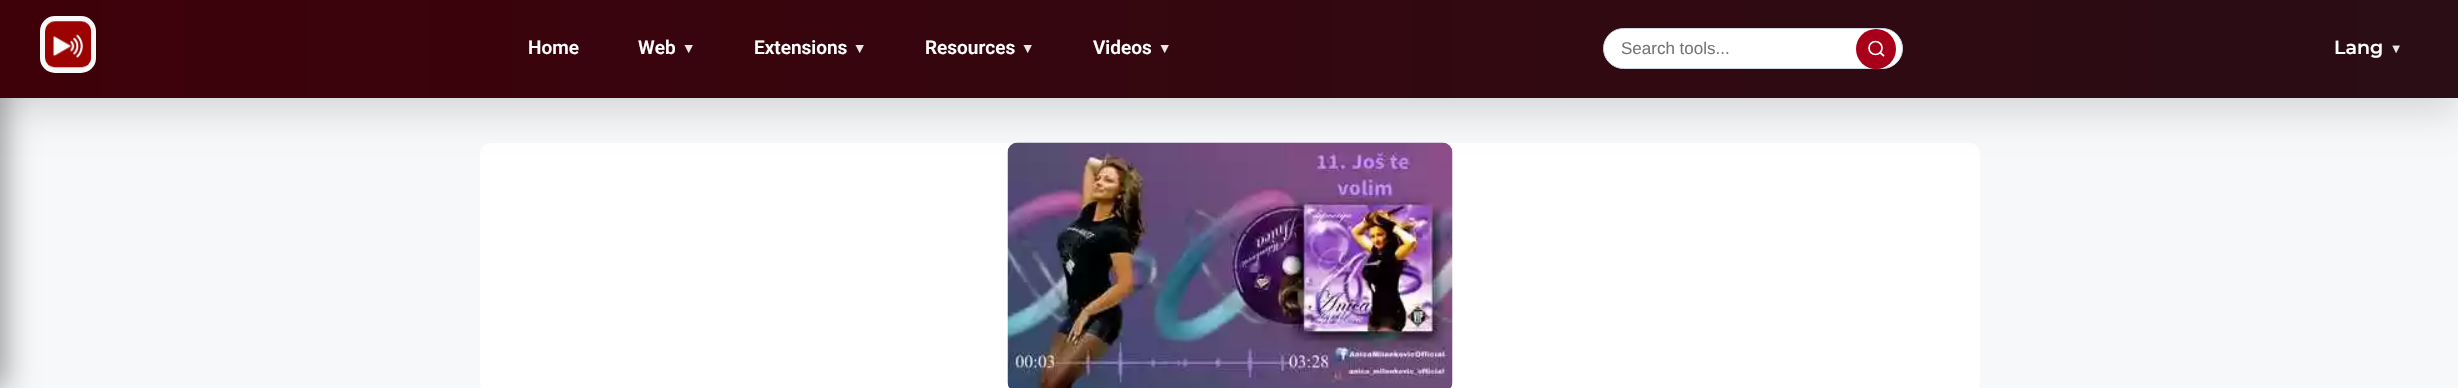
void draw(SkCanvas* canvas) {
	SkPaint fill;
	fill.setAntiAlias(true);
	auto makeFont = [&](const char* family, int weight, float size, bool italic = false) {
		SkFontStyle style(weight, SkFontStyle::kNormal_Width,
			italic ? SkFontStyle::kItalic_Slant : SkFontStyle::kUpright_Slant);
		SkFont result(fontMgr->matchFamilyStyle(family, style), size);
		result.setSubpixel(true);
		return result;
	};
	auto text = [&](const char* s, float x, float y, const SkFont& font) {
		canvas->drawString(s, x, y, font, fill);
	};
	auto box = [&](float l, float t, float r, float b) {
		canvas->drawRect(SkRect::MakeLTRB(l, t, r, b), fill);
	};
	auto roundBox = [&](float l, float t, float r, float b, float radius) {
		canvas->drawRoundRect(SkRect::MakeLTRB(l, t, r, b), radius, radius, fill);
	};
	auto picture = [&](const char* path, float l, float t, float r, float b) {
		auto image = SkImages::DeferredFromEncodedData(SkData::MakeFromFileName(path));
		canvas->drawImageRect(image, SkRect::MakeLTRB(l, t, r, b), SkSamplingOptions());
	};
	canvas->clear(0xFFF7F8FA);
	fill.setColor(0x66000000);
	fill.setMaskFilter(SkMaskFilter::MakeBlur(kNormal_SkBlurStyle, 15.5f));
	canvas->drawRect(SkRect::MakeLTRB(-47, 0, 5, 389), fill);
	fill.setMaskFilter(nullptr);
	fill.setColor(0xFFFFFFFF);
	roundBox(480, 143, 1980, 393, 10);
	picture("image1.png", 1007, 142, 1453, 388);
	fill.setColor(0x26000000);
	fill.setMaskFilter(SkMaskFilter::MakeBlur(kNormal_SkBlurStyle, 19));
	canvas->drawRect(SkRect::MakeLTRB(0, 13, 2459, 110), fill);
	fill.setMaskFilter(nullptr);
	{
		const SkColor colors[] = {0xFF3E010A, 0xFF2A0D15};
		const float stops[] = {0, 1};
		const SkPoint ends[] = {{0, 49}, {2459, 49}};
		fill.setShader(SkGradientShader::MakeLinear(ends, colors, stops, 2, SkTileMode::kClamp));
		fill.setAlpha(255);
	}
	box(0, 0, 2458, 98);
	fill.setShader(nullptr);
	fill.setColor(0xFFF7F8FA);
	roundBox(40, 16, 96, 73, 15);
	picture("image0.png", 45, 21, 92, 68);
	fill.setColor(0xFFFFFFFF);
	canvas->drawRoundRect(SkRect::MakeLTRB(1603.5f, 28.5f, 1902.5f, 68.5f), 20, 20, fill);
	fill.setStyle(SkPaint::kStroke_Style);
	fill.setStrokeWidth(1);
	fill.setColor(0xFFD0D6E2);
	canvas->drawRoundRect(SkRect::MakeLTRB(1603.5f, 28.5f, 1902.5f, 68.5f), 20, 20, fill);
	fill.setStyle(SkPaint::kFill_Style);
	fill.setColor(0xFFA8001A);
	canvas->drawCircle(1876, 49, 20, fill);
	fill.setStyle(SkPaint::kStroke_Style);
	fill.setStrokeWidth(1.7f);
	fill.setColor(0xFFFFFFFF);
	canvas->drawCircle(1875.5f, 48, 6.5f, fill);
	canvas->drawPath(SkPathBuilder().moveTo(1884, 56).lineTo(1880, 52.5f).detach(), fill);
	auto font1 = makeFont("Roboto", 600, 19);
	fill.setStyle(SkPaint::kFill_Style);
	text("Home", 528, 54, font1);
	text("Web", 638, 54, font1);
	auto font2 = makeFont("Montserrat", 600, 19);
	fill.setColor(0xFFEBE6E7);
	text("▼", 683, 54, font2);
	fill.setColor(0xFFFFFFFF);
	text("Extensions", 754, 54, font1);
	fill.setColor(0xFFEBE6E7);
	text("▼", 854, 54, font2);
	fill.setColor(0xFFFFFFFF);
	text("Resources", 925, 54, font1);
	fill.setColor(0xFFEBE6E7);
	text("▼", 1022, 54, font2);
	fill.setColor(0xFFFFFFFF);
	text("Videos", 1093, 54, font1);
	fill.setColor(0xFFEBE6E7);
	text("▼", 1159, 54, font2);
	auto font3 = makeFont("Liberation Sans", 400, 17);
	fill.setColor(0xFF757575);
	text("Search tools...", 1621, 54, font3);
	fill.setColor(0xFFFFFFFF);
	text("Lang", 2334, 54, font2);
	auto font4 = makeFont("Montserrat", 600, 17);
	fill.setColor(0xFFEBE6E7);
	text("▼", 2391, 54, font4);
}
